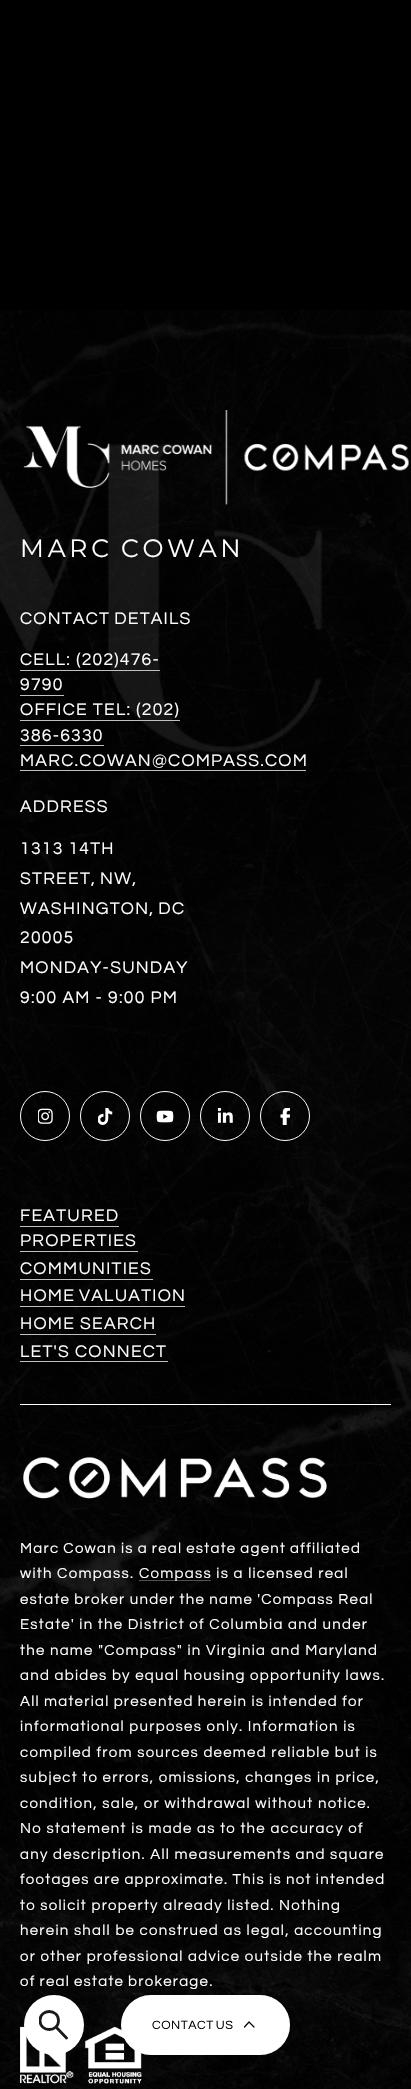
void draw(SkCanvas* canvas) {
	SkPaint fill;
	fill.setAntiAlias(true);
	auto makeFont = [&](const char* family, int weight, float size, bool italic = false) {
		SkFontStyle style(weight, SkFontStyle::kNormal_Width,
			italic ? SkFontStyle::kItalic_Slant : SkFontStyle::kUpright_Slant);
		SkFont result(fontMgr->matchFamilyStyle(family, style), size);
		result.setSubpixel(true);
		return result;
	};
	auto spacedText = [&](const char* s, float x, float y, const SkFont& font, const SkPaint& ink, float letter, float word) {
		std::vector<SkGlyphID> glyphs(font.countText(s, strlen(s), SkTextEncoding::kUTF8));
		std::vector<float> xs(glyphs.size());
		font.textToGlyphs(s, strlen(s), SkTextEncoding::kUTF8, glyphs);
		font.getXPos(glyphs, xs, x);
		float extra = 0;
		for (size_t i = 0; i < glyphs.size(); i++) {
			xs[i] += extra;
			extra += letter + word * (glyphs[i] == font.unicharToGlyph(' '));
		}
		canvas->drawTextBlob(SkTextBlob::MakeFromPosHGlyphs(glyphs, xs, y, font), 0, 0, ink);
	};
	auto box = [&](float l, float t, float r, float b) {
		canvas->drawRect(SkRect::MakeLTRB(l, t, r, b), fill);
	};
	auto roundBox = [&](float l, float t, float r, float b, float radius) {
		canvas->drawRoundRect(SkRect::MakeLTRB(l, t, r, b), radius, radius, fill);
	};
	auto picture = [&](const char* path, float l, float t, float r, float b) {
		auto image = SkImages::DeferredFromEncodedData(SkData::MakeFromFileName(path));
		canvas->drawImageRect(image, SkRect::MakeLTRB(l, t, r, b), SkSamplingOptions());
	};
	canvas->clear(0xFF000000);
	picture("image0.png", 0, 310, 411, 2089);
	picture("image2.png", 23, 410, 409, 505);
	fill.setColor(0xFFC0C0C0);
	box(20, 770, 306, 771);
	fill.setStyle(SkPaint::kStroke_Style);
	fill.setStrokeWidth(1);
	fill.setColor(0xFFFFFFFF);
	canvas->drawCircle(45, 1116, 24.5f, fill);
	picture("image3.png", 38, 1108, 53, 1124);
	canvas->drawCircle(105, 1116, 24.5f, fill);
	picture("image4.png", 98, 1108, 113, 1125);
	canvas->drawCircle(165, 1116, 24.5f, fill);
	picture("image5.png", 156, 1110, 174, 1123);
	canvas->drawCircle(225, 1116, 24.5f, fill);
	picture("image6.png", 218, 1108, 233, 1123);
	canvas->drawCircle(285, 1116, 24.5f, fill);
	picture("image7.png", 280, 1108, 290, 1125);
	fill.setStyle(SkPaint::kFill_Style);
	fill.setColor(0xFFC0C0C0);
	box(20, 1226, 119, 1227);
	box(20, 1251, 138, 1252);
	box(20, 1279, 153, 1280);
	box(20, 1306, 185, 1307);
	box(20, 1334, 156, 1335);
	box(20, 1361, 168, 1362);
	fill.setColor(0xFFFFFFFF);
	box(20, 1404, 391, 1405);
	picture("image8.png", 23, 1457, 327, 1499);
	fill.setColor(0x4DFFFFFF);
	box(139, 1580, 211, 1581);
	picture("image9.png", 20, 2026, 142, 2084);
	fill.setColor(0xFFFFFFFF);
	canvas->drawCircle(54, 2025, 30, fill);
	canvas->save();
	canvas->clipRect(SkRect::MakeLTRB(39, 2010, 69, 2040));
	fill.setStyle(SkPaint::kStroke_Style);
	fill.setStrokeWidth(2.8f);
	fill.setStrokeCap(SkPaint::kRound_Cap);
	fill.setStrokeJoin(SkPaint::kRound_Join);
	fill.setColor(0xFF1A1A1A);
	canvas->drawPath(SkPathBuilder().moveTo(58.5f, 2020.5f).cubicTo(58.5f, 2032.5f, 40, 2032.5f, 40, 2020.5f).cubicTo(40, 2008.5f, 58.5f, 2008.5f, 58.5f, 2020.5f).moveTo(66.5f, 2038).lineTo(56, 2027).detach(), fill);
	canvas->restore();
	fill.setStyle(SkPaint::kFill_Style);
	fill.setColor(0xFFFFFFFF);
	roundBox(121, 1995, 290, 2055, 30);
	fill.setStyle(SkPaint::kStroke_Style);
	fill.setStrokeWidth(1);
	fill.setStrokeCap(SkPaint::kButt_Cap);
	fill.setStrokeJoin(SkPaint::kMiter_Join);
	fill.setColor(0x33FFFFFF);
	canvas->drawRoundRect(SkRect::MakeLTRB(121.5f, 1995.5f, 289.5f, 2054.5f), 29.5f, 29.5f, fill);
	fill.setStrokeWidth(1.2f);
	fill.setStrokeCap(SkPaint::kRound_Cap);
	fill.setStrokeJoin(SkPaint::kRound_Join);
	fill.setColor(0xFF000000);
	canvas->drawPath(SkPathBuilder().moveTo(254, 2027).lineTo(249, 2022).lineTo(244.5f, 2027).detach(), fill);
	auto font1 = makeFont("Montserrat", 400, 25);
	fill.setStyle(SkPaint::kFill_Style);
	fill.setColor(0xFFFFFFFF);
	spacedText("MARC COWAN", 20, 557, font1, fill, 3.75f, -2);
	auto font2 = makeFont("Questrial", 400, 17.5f);
	spacedText("CONTACT DETAILS", 20, 624, font2, fill, 1.25f, -1);
	picture("image1.png", 0, 444, 322, 753);
	spacedText("CELL: (202)476-", 20, 665, font2, fill, 1.25f, 0);
	fill.setColor(0xFFC0C0C0);
	box(20, 670, 160, 671);
	fill.setColor(0xFFFFFFFF);
	spacedText("9790", 20, 690, font2, fill, 1.25f, 0);
	fill.setColor(0xFFC0C0C0);
	box(20, 695, 64, 696);
	fill.setColor(0xFFFFFFFF);
	spacedText("OFFICE TEL: (202)", 20, 715, font2, fill, 1.25f, 0);
	fill.setColor(0xFFC0C0C0);
	box(20, 720, 180, 721);
	fill.setColor(0xFFFFFFFF);
	spacedText("386-6330", 20, 741, font2, fill, 1.25f, 0);
	fill.setColor(0xFFC0C0C0);
	box(20, 745, 104, 746);
	fill.setColor(0xFFFFFFFF);
	spacedText("MARC.COWAN@COMPASS.COM", 20, 766, font2, fill, 1.25f, 0);
	spacedText("ADDRESS", 20, 812, font2, fill, 1.25f, 0);
	spacedText("1313 14TH", 20, 854, font2, fill, 1.25f, 0);
	spacedText("STREET, NW,", 20, 884, font2, fill, 1.25f, -1);
	spacedText("WASHINGTON, DC", 20, 914, font2, fill, 1.25f, -1);
	spacedText("20005", 20, 943, font2, fill, 1.25f, 0);
	spacedText("MONDAY-SUNDAY", 20, 973, font2, fill, 1.25f, 0);
	spacedText("9:00 AM - 9:00 PM", 20, 1003, font2, fill, 1.25f, 0);
	spacedText("FEATURED", 20, 1221, font2, fill, 1.25f, 0);
	spacedText("PROPERTIES", 20, 1246, font2, fill, 1.25f, 0);
	spacedText("COMMUNITIES", 20, 1274, font2, fill, 1.25f, 0);
	spacedText("HOME VALUATION", 20, 1301, font2, fill, 1.25f, -1);
	spacedText("HOME SEARCH", 20, 1329, font2, fill, 1.25f, 0);
	spacedText("LET'S CONNECT", 20, 1357, font2, fill, 1.25f, 0);
	auto font3 = makeFont("Questrial", 400, 15);
	spacedText("Marc Cowan is a real estate agent affiliated", 20, 1553, font3, fill, 1.25f, -0.5f);
	spacedText("with Compass.", 20, 1578, font3, fill, 1.25f, 0);
	spacedText("Compass is a licensed real", 139, 1578, font3, fill, 1.25f, 0);
	spacedText("estate broker under the name 'Compass Real", 20, 1604, font3, fill, 1.25f, -0.25f);
	spacedText("Estate' in the District of Columbia and under", 20, 1629, font3, fill, 1.25f, 0);
	spacedText("the name \"Compass\" in Virginia and Maryland", 20, 1655, font3, fill, 1.25f, 0);
	spacedText("and abides by equal housing opportunity laws.", 20, 1680, font3, fill, 1.25f, 0);
	spacedText("All material presented herein is intended for", 20, 1706, font3, fill, 1.25f, -0.25f);
	spacedText("informational purposes only. Information is", 20, 1731, font3, fill, 1.25f, 0);
	spacedText("compiled from sources deemed reliable but is", 20, 1757, font3, fill, 1.25f, 0);
	spacedText("subject to errors, omissions, changes in price,", 20, 1782, font3, fill, 1.25f, 0);
	spacedText("condition, sale, or withdrawal without notice.", 20, 1808, font3, fill, 1.25f, 0);
	spacedText("No statement is made as to the accuracy of", 20, 1833, font3, fill, 1.25f, 0);
	spacedText("any description. All measurements and square", 20, 1859, font3, fill, 1.25f, 0);
	spacedText("footages are approximate. This is not intended", 20, 1884, font3, fill, 1.25f, -0.25f);
	spacedText("to solicit property already listed. Nothing", 20, 1910, font3, fill, 1.25f, 0);
	spacedText("herein shall be construed as legal, accounting", 20, 1935, font3, fill, 1.25f, 0);
	spacedText("or other professional advice outside the realm", 20, 1961, font3, fill, 1.25f, 0);
	spacedText("of real estate brokerage.", 20, 1986, font3, fill, 1.25f, -0.5f);
	auto font4 = makeFont("Questrial", 400, 12.5f);
	fill.setColor(0xFF000000);
	spacedText("CONTACT US", 152, 2029, font4, fill, 0.5f, -1);
}
